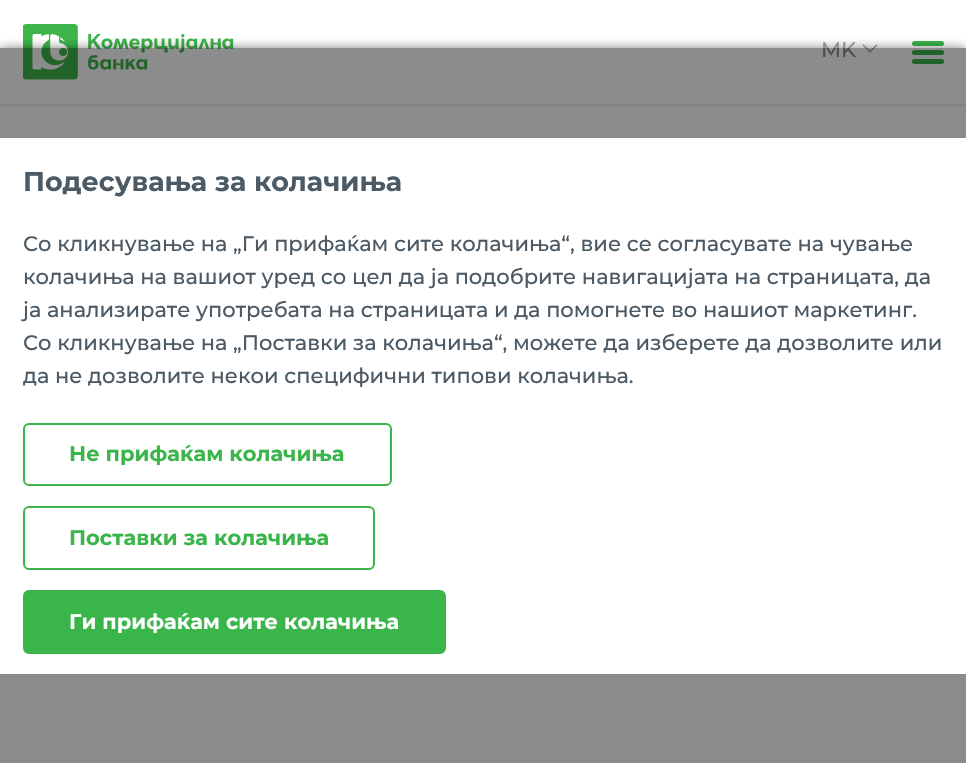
void draw(SkCanvas* canvas) {
	SkPaint fill;
	fill.setAntiAlias(true);
	auto makeFont = [&](const char* family, int weight, float size, bool italic = false) {
		SkFontStyle style(weight, SkFontStyle::kNormal_Width,
			italic ? SkFontStyle::kItalic_Slant : SkFontStyle::kUpright_Slant);
		SkFont result(fontMgr->matchFamilyStyle(family, style), size);
		result.setSubpixel(true);
		return result;
	};
	auto text = [&](const char* s, float x, float y, const SkFont& font) {
		canvas->drawString(s, x, y, font, fill);
	};
	auto box = [&](float l, float t, float r, float b) {
		canvas->drawRect(SkRect::MakeLTRB(l, t, r, b), fill);
	};
	auto roundBox = [&](float l, float t, float r, float b, float radius) {
		canvas->drawRoundRect(SkRect::MakeLTRB(l, t, r, b), radius, radius, fill);
	};
	auto picture = [&](const char* path, float l, float t, float r, float b) {
		auto image = SkImages::DeferredFromEncodedData(SkData::MakeFromFileName(path));
		canvas->drawImageRect(image, SkRect::MakeLTRB(l, t, r, b), SkSamplingOptions());
	};
	canvas->clear(0xFFFFFFFF);
	fill.setColor(0x38000000);
	fill.setMaskFilter(SkMaskFilter::MakeBlur(kNormal_SkBlurStyle, 2));
	canvas->drawRect(SkRect::MakeLTRB(0, 0, 966, 104), fill);
	fill.setMaskFilter(nullptr);
	fill.setColor(0xFFFFFFFF);
	box(0, 0, 966, 104);
	picture("image0.png", 23, 24, 234, 80);
	picture("image1.png", 862, 44, 878, 53);
	fill.setColor(0xFF39B54A);
	roundBox(912, 41, 944, 46, 2.5f);
	roundBox(912, 50, 944, 55, 2.5f);
	roundBox(912, 59, 944, 64, 2.5f);
	canvas->save();
	canvas->clipRect(SkRect::MakeLTRB(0, 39, 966, 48));
	fill.setColor(0x80000000);
	fill.setMaskFilter(SkMaskFilter::MakeBlur(kNormal_SkBlurStyle, 5));
	canvas->drawRect(SkRect::MakeLTRB(0, 48, 966, 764), fill);
	fill.setMaskFilter(nullptr);
	canvas->restore();
	auto font1 = makeFont("Montserrat", 500, 21);
	fill.setColor(0xFF8E8E91);
	text("MK", 821, 57, font1);
	fill.setColor(0x73000000);
	box(0, 48, 966, 763);
	fill.setColor(0xFFFFFFFF);
	box(0, 138, 966, 674);
	auto font2 = makeFont("Montserrat", 700, 27);
	fill.setColor(0xFF4B5A64);
	text("Подесувања за колачиња", 23, 191, font2);
	text("Со кликнување на „Ги прифаќам сите колачиња“, вие се согласувате на чување", 23, 251, font1);
	text("колачиња на вашиот уред со цел да ја подобрите навигацијата на страницата, да", 23, 284, font1);
	text("ја анализирате употребата на страницата и да помогнете во нашиот маркетинг.", 23, 317, font1);
	text("Со кликнување на „Поставки за колачиња“, можете да изберете да дозволите или", 23, 350, font1);
	text("да не дозволите некои специфични типови колачиња.", 23, 383, font1);
	fill.setStyle(SkPaint::kStroke_Style);
	fill.setStrokeWidth(2);
	fill.setColor(0xFF39B54A);
	canvas->drawRoundRect(SkRect::MakeLTRB(24, 424, 391, 485), 5, 5, fill);
	auto font3 = makeFont("Montserrat", 700, 21);
	fill.setStyle(SkPaint::kFill_Style);
	text("Не прифаќам колачиња", 69, 461, font3);
	fill.setStyle(SkPaint::kStroke_Style);
	canvas->drawRoundRect(SkRect::MakeLTRB(24, 507, 374, 569), 5, 5, fill);
	fill.setStyle(SkPaint::kFill_Style);
	text("Поставки за колачиња", 69, 545, font3);
	canvas->drawRoundRect(SkRect::MakeLTRB(24, 591, 445, 653), 5, 5, fill);
	fill.setStyle(SkPaint::kStroke_Style);
	canvas->drawRoundRect(SkRect::MakeLTRB(24, 591, 445, 653), 5, 5, fill);
	fill.setStyle(SkPaint::kFill_Style);
	fill.setColor(0xFFFFFFFF);
	text("Ги прифаќам сите колачиња", 69, 629, font3);
}
